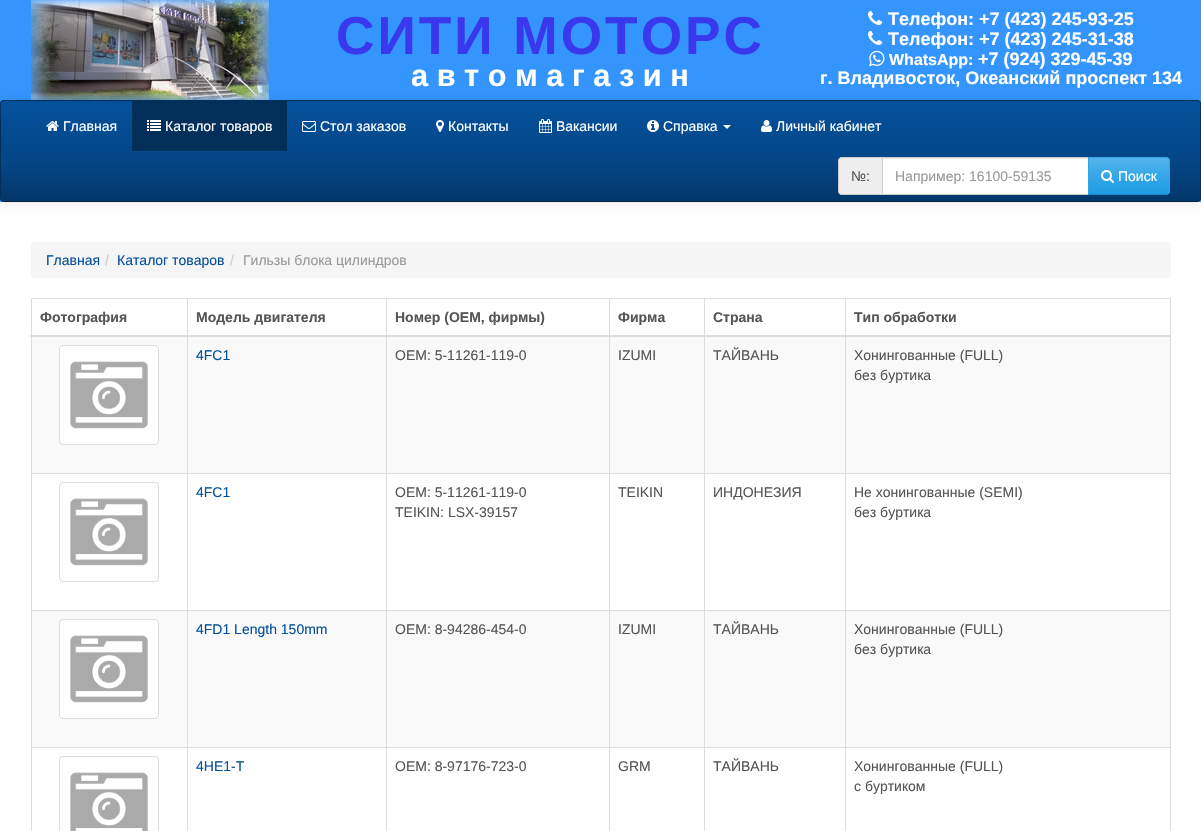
void draw(SkCanvas* canvas) {
	SkPaint fill;
	fill.setAntiAlias(true);
	auto makeFont = [&](const char* family, int weight, float size, bool italic = false) {
		SkFontStyle style(weight, SkFontStyle::kNormal_Width,
			italic ? SkFontStyle::kItalic_Slant : SkFontStyle::kUpright_Slant);
		SkFont result(fontMgr->matchFamilyStyle(family, style), size);
		result.setSubpixel(true);
		return result;
	};
	auto text = [&](const char* s, float x, float y, const SkFont& font) {
		canvas->drawString(s, x, y, font, fill);
	};
	auto spacedText = [&](const char* s, float x, float y, const SkFont& font, const SkPaint& ink, float letter, float word) {
		std::vector<SkGlyphID> glyphs(font.countText(s, strlen(s), SkTextEncoding::kUTF8));
		std::vector<float> xs(glyphs.size());
		font.textToGlyphs(s, strlen(s), SkTextEncoding::kUTF8, glyphs);
		font.getXPos(glyphs, xs, x);
		float extra = 0;
		for (size_t i = 0; i < glyphs.size(); i++) {
			xs[i] += extra;
			extra += letter + word * (glyphs[i] == font.unicharToGlyph(' '));
		}
		canvas->drawTextBlob(SkTextBlob::MakeFromPosHGlyphs(glyphs, xs, y, font), 0, 0, ink);
	};
	auto box = [&](float l, float t, float r, float b) {
		canvas->drawRect(SkRect::MakeLTRB(l, t, r, b), fill);
	};
	auto roundBox = [&](float l, float t, float r, float b, float radius) {
		canvas->drawRoundRect(SkRect::MakeLTRB(l, t, r, b), radius, radius, fill);
	};
	auto picture = [&](const char* path, float l, float t, float r, float b) {
		auto image = SkImages::DeferredFromEncodedData(SkData::MakeFromFileName(path));
		canvas->drawImageRect(image, SkRect::MakeLTRB(l, t, r, b), SkSamplingOptions());
	};
	canvas->clear(0xFFFFFFFF);
	fill.setColor(0xFF3495FF);
	box(0, 0, 1201, 202);
	picture("image0.png", 31, 0, 269, 100);
	picture("image1.png", 868, 10, 883, 25);
	picture("image1.png", 868, 30, 883, 45);
	picture("image2.png", 869, 50, 885, 67);
	fill.setColor(0x1A000000);
	fill.setMaskFilter(SkMaskFilter::MakeBlur(kNormal_SkBlurStyle, 5));
	canvas->drawRoundRect(SkRect::MakeLTRB(0, 101, 1201, 203), 4, 4, fill);
	fill.setMaskFilter(nullptr);
	fill.setColor(0xFF033C73);
	roundBox(0, 100, 1201, 202, 4);
	canvas->save();
	canvas->clipPath(SkPathBuilder().moveTo(4, 100).lineTo(1197, 100).cubicTo(1199, 100, 1201, 102, 1201, 104).lineTo(1201, 198).cubicTo(1201, 200, 1199, 202, 1197, 202).lineTo(4, 202).cubicTo(2, 202, 0, 200, 0, 198).lineTo(0, 104).cubicTo(0, 102, 2, 100, 4, 100).close().detach(), true);
	{
		const SkColor colors[] = {0xFF04519B, 0xFF044687, 0xFF033769};
		const float stops[] = {0, 0.6f, 1};
		const SkPoint ends[] = {{601, 101}, {601, 201}};
		fill.setShader(SkGradientShader::MakeLinear(ends, colors, stops, 3, SkTileMode::kClamp));
		fill.setAlpha(255);
	}
	box(1, 101, 1200, 201);
	canvas->restore();
	fill.setStyle(SkPaint::kStroke_Style);
	fill.setStrokeWidth(1);
	fill.setShader(nullptr);
	fill.setColor(0xFF022241);
	canvas->drawPath(SkPathBuilder().moveTo(1199.5f, 200.5f).lineTo(1197, 201.5f).lineTo(4, 201.5f).lineTo(1.5f, 200.5f).detach(), fill);
	fill.setColor(0xFF022F5A);
	canvas->drawPath(SkPathBuilder().moveTo(1.5f, 200.5f).lineTo(0.5f, 198.5f).lineTo(0.5f, 119.5f).cubicTo(0.5f, 112.5f, -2.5f, 100.5f, 4, 100.5f).lineTo(1197, 100.5f).cubicTo(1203.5f, 100.5f, 1200.5f, 112.5f, 1200.5f, 119.5f).lineTo(1200.5f, 198.5f).lineTo(1199.5f, 200.5f).detach(), fill);
	picture("image3.png", 46, 121, 59, 131);
	fill.setStyle(SkPaint::kFill_Style);
	box(132, 101, 287, 151);
	picture("image4.png", 147, 120, 161, 131);
	picture("image5.png", 302, 121, 316, 132);
	picture("image6.png", 436, 120, 444, 132);
	picture("image7.png", 539, 119, 552, 133);
	picture("image8.png", 647, 120, 659, 132);
	fill.setColor(0xFFFFFFFF);
	canvas->drawPath(SkPathBuilder().moveTo(723, 125).lineTo(731, 125).lineTo(727, 129).close().detach(), fill);
	picture("image9.png", 761, 120, 772, 132);
	fill.setColor(0xFFEEEEEE);
	canvas->drawPath(SkPathBuilder().moveTo(842, 157).lineTo(882, 157).lineTo(882, 195).lineTo(842, 195).cubicTo(840, 195, 838, 193, 838, 191).lineTo(838, 161).cubicTo(838, 159, 840, 157, 842, 157).close().detach(), fill);
	fill.setColor(0xFFCCCCCC);
	canvas->drawPath(SkPathBuilder(SkPathFillType::kEvenOdd).moveTo(842, 157).lineTo(882, 157).lineTo(882, 195).lineTo(842, 195).cubicTo(840, 195, 838, 193, 838, 191).lineTo(838, 161).cubicTo(838, 159, 840, 157, 842, 157).close().moveTo(842, 158).lineTo(882, 158).lineTo(882, 194).lineTo(842, 194).cubicTo(840, 194, 839, 193, 839, 191).lineTo(839, 161).cubicTo(839, 159, 840, 158, 842, 158).close().detach(), fill);
	fill.setColor(0xFFFFFFFF);
	box(883, 159, 1088, 194);
	fill.setColor(0xFFECECEC);
	box(883, 158, 1088, 159);
	fill.setStyle(SkPaint::kStroke_Style);
	fill.setColor(0xFFCCCCCC);
	canvas->drawRect(SkRect::MakeLTRB(882.5f, 157.5f, 1088.5f, 194.5f), fill);
	fill.setStyle(SkPaint::kFill_Style);
	fill.setColor(0xFF2FA4E7);
	canvas->drawPath(SkPathBuilder().moveTo(1088, 157).lineTo(1166, 157).cubicTo(1168, 157, 1170, 159, 1170, 161).lineTo(1170, 191).cubicTo(1170, 193, 1168, 195, 1166, 195).lineTo(1088, 195).close().detach(), fill);
	{
		const SkColor colors[] = {0xFF54B4EB, 0xFF2FA4E7, 0xFF1D9CE5};
		const float stops[] = {0, 0.6f, 1};
		const SkPoint ends[] = {{1129, 158}, {1129, 194}};
		fill.setShader(SkGradientShader::MakeLinear(ends, colors, stops, 3, SkTileMode::kClamp));
		fill.setAlpha(255);
	}
	box(1089, 158, 1169, 194);
	fill.setShader(nullptr);
	fill.setColor(0xFF2FA4E7);
	canvas->drawPath(SkPathBuilder().moveTo(1088, 157).lineTo(1089, 158).lineTo(1167, 158).lineTo(1168, 159).lineTo(1169, 158).lineTo(1166, 157).close().detach(), fill);
	canvas->drawPath(SkPathBuilder().moveTo(1170, 191).lineTo(1170, 161).cubicTo(1170, 160, 1169.5f, 159, 1169, 158).lineTo(1168, 159).cubicTo(1169, 159, 1169, 160, 1169, 161).lineTo(1169, 191).cubicTo(1169, 192, 1169, 193, 1168, 193).lineTo(1169, 194).cubicTo(1169.5f, 193, 1170, 192, 1170, 191).close().detach(), fill);
	fill.setColor(0xFF178ACC);
	canvas->drawPath(SkPathBuilder().moveTo(1166, 195).lineTo(1169, 194).lineTo(1168, 193).lineTo(1167, 194).lineTo(1089, 194).lineTo(1088, 195).close().detach(), fill);
	fill.setColor(0xFF2FA4E7);
	canvas->drawPath(SkPathBuilder().moveTo(1088, 157).lineTo(1088, 195).lineTo(1089, 194).lineTo(1089, 158).close().detach(), fill);
	picture("image10.png", 1101, 170, 1114, 183);
	fill.setColor(0xFFF5F5F5);
	roundBox(31, 242, 1171, 278, 4);
	fill.setColor(0xFFDDDDDD);
	box(31, 298, 1171, 299);
	box(1170, 298, 1171, 831);
	box(31, 298, 32, 831);
	fill.setColor(0xFFF9F9F9);
	box(32, 337, 1170, 473);
	fill.setColor(0xFFDDDDDD);
	box(845, 473, 1171, 474);
	box(845, 610, 1171, 611);
	fill.setColor(0xFFF9F9F9);
	box(32, 611, 1170, 747);
	fill.setColor(0xFFDDDDDD);
	box(845, 747, 1171, 748);
	box(845, 747, 846, 831);
	box(704, 747, 846, 748);
	box(845, 610, 846, 748);
	box(704, 610, 846, 611);
	box(845, 473, 846, 611);
	box(704, 473, 846, 474);
	box(704, 747, 705, 831);
	box(609, 747, 705, 748);
	box(704, 610, 705, 748);
	box(609, 610, 705, 611);
	box(704, 473, 705, 611);
	box(609, 473, 705, 474);
	box(609, 747, 610, 831);
	box(386, 747, 610, 748);
	box(609, 610, 610, 748);
	box(386, 610, 610, 611);
	box(609, 473, 610, 611);
	box(386, 473, 610, 474);
	box(386, 747, 387, 831);
	box(187, 747, 387, 748);
	box(386, 610, 387, 748);
	box(187, 610, 387, 611);
	box(386, 473, 387, 611);
	box(187, 473, 387, 474);
	box(187, 747, 188, 831);
	box(31, 747, 188, 748);
	box(187, 610, 188, 748);
	box(31, 610, 188, 611);
	box(187, 473, 188, 611);
	box(31, 473, 188, 474);
	box(187, 298, 188, 474);
	box(386, 298, 387, 474);
	box(609, 298, 610, 474);
	box(704, 298, 705, 474);
	box(845, 298, 846, 474);
	box(30, 335, 1171, 337);
	fill.setColor(0xFFFFFFFF);
	canvas->drawRoundRect(SkRect::MakeLTRB(59.5f, 345.5f, 158.5f, 444.5f), 3.5f, 3.5f, fill);
	fill.setStyle(SkPaint::kStroke_Style);
	fill.setColor(0xFFDDDDDD);
	canvas->drawRoundRect(SkRect::MakeLTRB(59.5f, 345.5f, 158.5f, 444.5f), 3.5f, 3.5f, fill);
	picture("image11.png", 70, 361, 148, 429);
	canvas->drawRoundRect(SkRect::MakeLTRB(59.5f, 482.5f, 158.5f, 581.5f), 3.5f, 3.5f, fill);
	picture("image12.png", 70, 498, 148, 566);
	fill.setStyle(SkPaint::kFill_Style);
	fill.setColor(0xFFFFFFFF);
	canvas->drawRoundRect(SkRect::MakeLTRB(59.5f, 619.5f, 158.5f, 718.5f), 3.5f, 3.5f, fill);
	fill.setStyle(SkPaint::kStroke_Style);
	fill.setColor(0xFFDDDDDD);
	canvas->drawRoundRect(SkRect::MakeLTRB(59.5f, 619.5f, 158.5f, 718.5f), 3.5f, 3.5f, fill);
	picture("image11.png", 70, 635, 148, 703);
	canvas->drawRoundRect(SkRect::MakeLTRB(59.5f, 756.5f, 158.5f, 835.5f), 3.5f, 3.5f, fill);
	picture("image13.png", 70, 772, 148, 831);
	auto font1 = makeFont("Liberation Sans", 700, 53.25f);
	fill.setStyle(SkPaint::kFill_Style);
	fill.setColor(0xFF3A38ED);
	spacedText("СИТИ МОТОРС", 336, 54, font1, fill, 3, 0);
	auto font2 = makeFont("Liberation Sans", 700, 30.75f);
	fill.setColor(0xFFFFFFFF);
	text("а в т о м а г а з и н", 411, 86, font2);
	auto font3 = makeFont("Liberation Sans", 700, 18);
	text("Телефон: +7 (423) 245-93-25", 888, 25, font3);
	text("Телефон: +7 (423) 245-31-38", 888, 45, font3);
	auto font4 = makeFont("Liberation Sans", 700, 16);
	text("WhatsApp:", 889, 65, font4);
	text("+7 (924) 329-45-39", 978, 65, font3);
	text("г. Владивосток, Океанский проспект 134", 820, 84, font3);
	auto font5 = makeFont("Liberation Sans", 400, 14);
	text("Главная", 63, 131, font5);
	text("Каталог товаров", 165, 131, font5);
	text("Стол заказов", 320, 131, font5);
	text("Контакты", 448, 131, font5);
	text("Вакансии", 556, 131, font5);
	text("Справка", 663, 131, font5);
	text("Личный кабинет", 776, 131, font5);
	fill.setColor(0xFF555555);
	text("№:", 851, 181, font5);
	fill.setColor(0xFF999999);
	text("Например: 16100-59135", 895, 181, font5);
	fill.setColor(0xFFFFFFFF);
	text("Поиск", 1118, 181, font5);
	fill.setColor(0xFF04519B);
	text("Главная", 46, 265, font5);
	fill.setColor(0xFFCCCCCC);
	text("/", 105, 265, font5);
	fill.setColor(0xFF04519B);
	text("Каталог товаров", 117, 265, font5);
	fill.setColor(0xFFCCCCCC);
	text("/", 230, 265, font5);
	fill.setColor(0xFF999999);
	text("Гильзы блока цилиндров", 243, 265, font5);
	auto font6 = makeFont("Liberation Sans", 700, 14);
	fill.setColor(0xFF555555);
	text("Фотография", 40, 322, font6);
	text("Модель двигателя", 196, 322, font6);
	text("Номер (OEM, фирмы)", 395, 322, font6);
	text("Фирма", 618, 322, font6);
	text("Страна", 713, 322, font6);
	text("Тип обработки", 854, 322, font6);
	fill.setColor(0xFF04519B);
	text("4FC1", 196, 360, font5);
	fill.setColor(0xFF555555);
	text("OEM: 5-11261-119-0", 395, 360, font5);
	text("IZUMI", 618, 360, font5);
	text("ТАЙВАНЬ", 713, 360, font5);
	text("Хонингованные (FULL)", 854, 360, font5);
	text("без буртика", 854, 380, font5);
	fill.setColor(0xFF04519B);
	text("4FC1", 196, 497, font5);
	fill.setColor(0xFF555555);
	text("OEM: 5-11261-119-0", 395, 497, font5);
	text("TEIKIN: LSX-39157", 395, 517, font5);
	text("TEIKIN", 618, 497, font5);
	text("ИНДОНЕЗИЯ", 713, 497, font5);
	text("Не хонингованные (SEMI)", 854, 497, font5);
	text("без буртика", 854, 517, font5);
	fill.setColor(0xFF04519B);
	text("4FD1 Length 150mm", 196, 634, font5);
	fill.setColor(0xFF555555);
	text("OEM: 8-94286-454-0", 395, 634, font5);
	text("IZUMI", 618, 634, font5);
	text("ТАЙВАНЬ", 713, 634, font5);
	text("Хонингованные (FULL)", 854, 634, font5);
	text("без буртика", 854, 654, font5);
	fill.setColor(0xFF04519B);
	text("4HE1-T", 196, 771, font5);
	fill.setColor(0xFF555555);
	text("OEM: 8-97176-723-0", 395, 771, font5);
	text("GRM", 618, 771, font5);
	text("ТАЙВАНЬ", 713, 771, font5);
	text("Хонингованные (FULL)", 854, 771, font5);
	text("с буртиком", 854, 791, font5);
}
